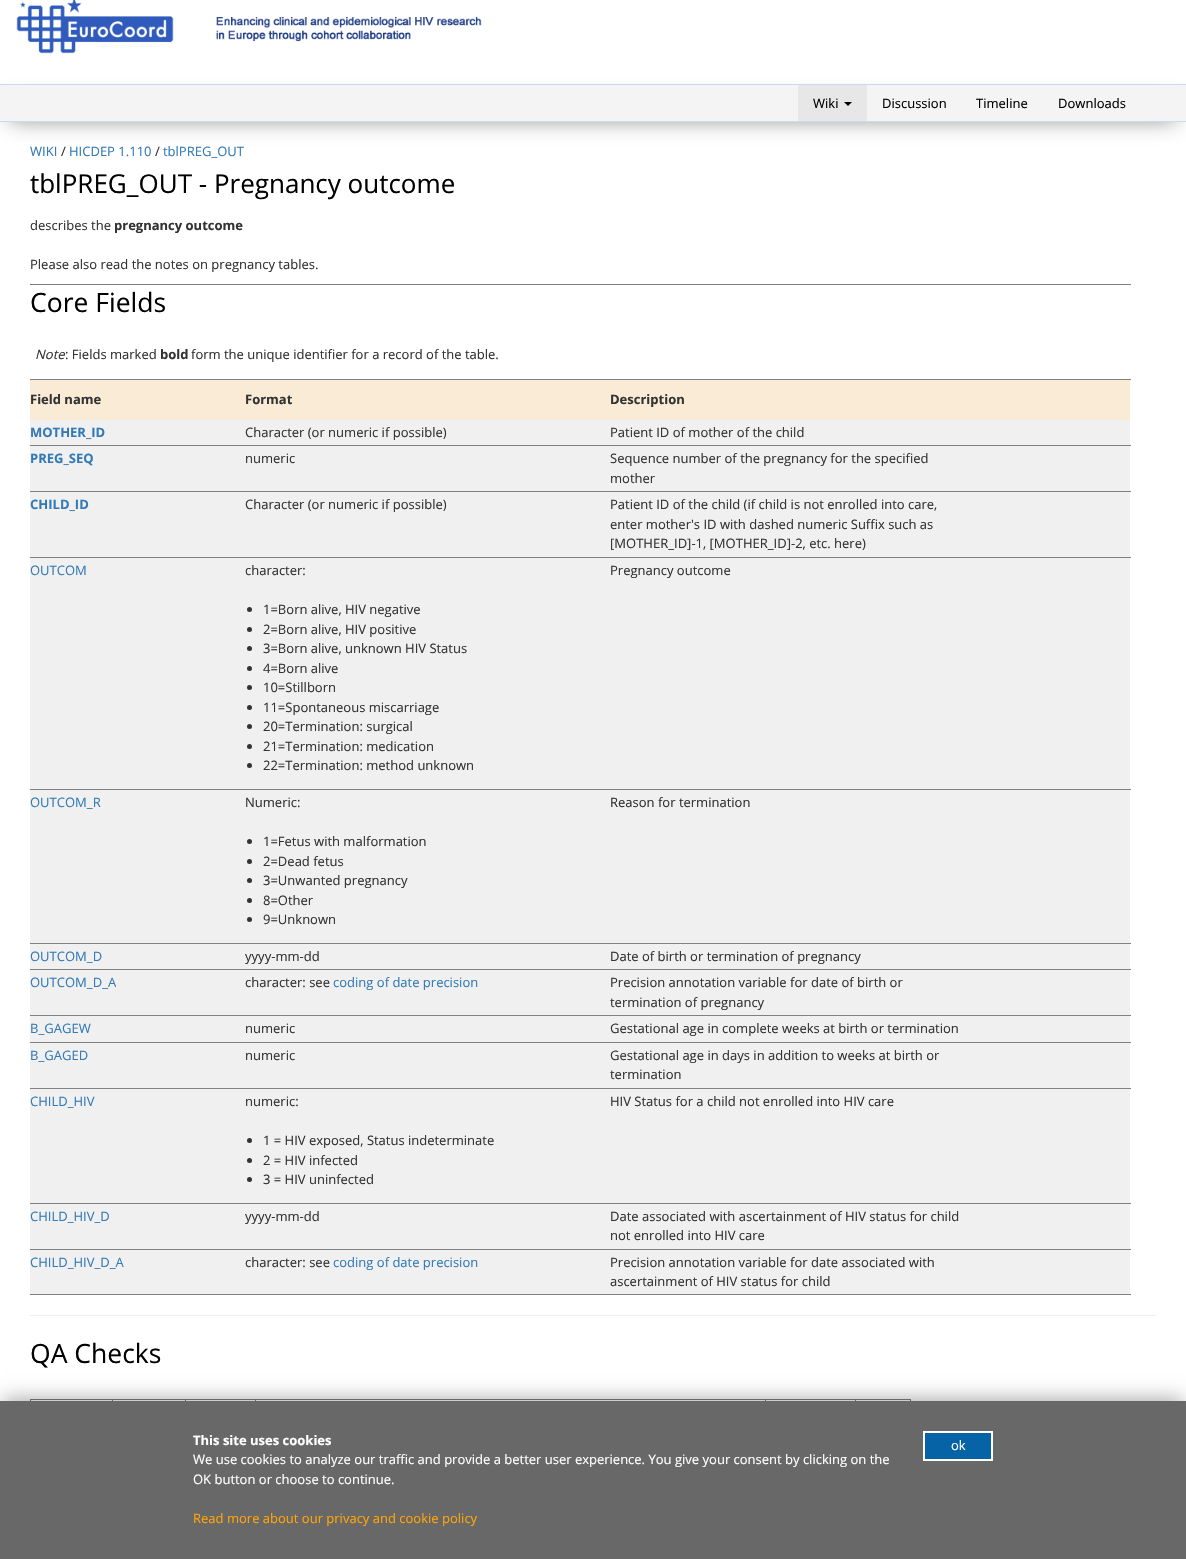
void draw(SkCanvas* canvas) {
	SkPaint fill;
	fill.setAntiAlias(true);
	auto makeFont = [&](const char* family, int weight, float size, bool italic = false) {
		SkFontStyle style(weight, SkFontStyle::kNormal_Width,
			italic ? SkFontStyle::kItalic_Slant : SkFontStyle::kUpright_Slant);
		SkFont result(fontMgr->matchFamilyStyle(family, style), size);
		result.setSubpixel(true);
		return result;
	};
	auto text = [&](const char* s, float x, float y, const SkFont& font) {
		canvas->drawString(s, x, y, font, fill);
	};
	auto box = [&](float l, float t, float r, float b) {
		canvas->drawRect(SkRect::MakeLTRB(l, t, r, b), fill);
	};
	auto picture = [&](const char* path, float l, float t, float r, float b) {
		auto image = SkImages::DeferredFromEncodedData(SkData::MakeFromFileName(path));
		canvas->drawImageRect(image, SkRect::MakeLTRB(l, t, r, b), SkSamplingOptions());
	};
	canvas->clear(0xFFFFFFFF);
	picture("image0.png", 16, 0, 482, 54);
	fill.setColor(0x78000000);
	fill.setMaskFilter(SkMaskFilter::MakeBlur(kNormal_SkBlurStyle, 10.5f));
	canvas->drawRect(SkRect::MakeLTRB(10, 102, 1176, 120), fill);
	fill.setMaskFilter(nullptr);
	fill.setColor(0xFFF4F4F4);
	box(0, 85, 1186, 121);
	fill.setColor(0xFFCADAFF);
	box(0, 84, 1186, 85);
	box(0, 121, 1186, 122);
	fill.setColor(0xFFE7E7E7);
	box(798, 85, 867, 121);
	fill.setColor(0xFF000000);
	canvas->drawPath(SkPathBuilder().moveTo(844, 102).lineTo(852, 102).lineTo(848, 106).close().detach(), fill);
	fill.setColor(0xFF808080);
	box(30, 284, 1131, 285);
	box(30, 379, 1131, 380);
	fill.setColor(0xFFFAEBD7);
	box(30, 380, 1130, 420);
	fill.setColor(0xFFF0F0F0);
	box(30, 420, 1130, 445);
	fill.setColor(0xFF808080);
	box(30, 445, 1131, 446);
	fill.setColor(0xFFF0F0F0);
	box(30, 446, 1130, 491);
	fill.setColor(0xFF808080);
	box(30, 491, 1131, 492);
	fill.setColor(0xFFF0F0F0);
	box(30, 492, 1130, 557);
	fill.setColor(0xFF808080);
	box(30, 557, 1131, 558);
	fill.setColor(0xFFF0F0F0);
	box(30, 558, 1130, 789);
	fill.setColor(0xFF333333);
	canvas->drawCircle(249.5f, 609.5f, 2.5f, fill);
	canvas->drawCircle(249.5f, 629.5f, 2.5f, fill);
	canvas->drawCircle(249.5f, 648.5f, 2.5f, fill);
	canvas->drawCircle(249.5f, 668.5f, 2.5f, fill);
	canvas->drawCircle(249.5f, 687.5f, 2.5f, fill);
	canvas->drawCircle(249.5f, 707.5f, 2.5f, fill);
	canvas->drawCircle(249.5f, 726.5f, 2.5f, fill);
	canvas->drawCircle(249.5f, 746.5f, 2.5f, fill);
	canvas->drawCircle(249.5f, 765.5f, 2.5f, fill);
	fill.setColor(0xFF808080);
	box(30, 789, 1131, 790);
	fill.setColor(0xFFF0F0F0);
	box(30, 790, 1130, 943);
	fill.setColor(0xFF333333);
	canvas->drawCircle(249.5f, 841.5f, 2.5f, fill);
	canvas->drawCircle(249.5f, 861.5f, 2.5f, fill);
	canvas->drawCircle(249.5f, 880.5f, 2.5f, fill);
	canvas->drawCircle(249.5f, 900.5f, 2.5f, fill);
	canvas->drawCircle(249.5f, 919.5f, 2.5f, fill);
	fill.setColor(0xFF808080);
	box(30, 943, 1131, 944);
	fill.setColor(0xFFF0F0F0);
	box(30, 944, 1130, 969);
	fill.setColor(0xFF808080);
	box(30, 969, 1131, 970);
	fill.setColor(0xFFF0F0F0);
	box(30, 970, 1130, 1015);
	fill.setColor(0xFF808080);
	box(30, 1015, 1131, 1016);
	fill.setColor(0xFFF0F0F0);
	box(30, 1016, 1130, 1042);
	fill.setColor(0xFF808080);
	box(30, 1042, 1131, 1043);
	fill.setColor(0xFFF0F0F0);
	box(30, 1043, 1130, 1088);
	fill.setColor(0xFF808080);
	box(30, 1088, 1131, 1089);
	fill.setColor(0xFFF0F0F0);
	box(30, 1089, 1130, 1203);
	fill.setColor(0xFF333333);
	canvas->drawCircle(249.5f, 1140.5f, 2.5f, fill);
	canvas->drawCircle(249.5f, 1160.5f, 2.5f, fill);
	canvas->drawCircle(249.5f, 1179.5f, 2.5f, fill);
	fill.setColor(0xFF808080);
	box(30, 1203, 1131, 1204);
	fill.setColor(0xFFF0F0F0);
	box(30, 1204, 1130, 1249);
	fill.setColor(0xFF808080);
	box(30, 1249, 1131, 1250);
	box(30, 1294, 1131, 1295);
	fill.setColor(0xFFF0F0F0);
	box(30, 1250, 1130, 1294);
	fill.setColor(0xFFEEEEEE);
	box(30, 1315, 1156, 1316);
	fill.setColor(0xFF808080);
	box(30, 1399, 911, 1400);
	box(910, 1399, 911, 1401);
	box(30, 1399, 31, 1401);
	box(112, 1399, 113, 1401);
	box(185, 1399, 186, 1401);
	box(255, 1399, 256, 1401);
	box(765, 1399, 766, 1401);
	box(855, 1399, 856, 1401);
	fill.setColor(0x57000000);
	fill.setMaskFilter(SkMaskFilter::MakeBlur(kNormal_SkBlurStyle, 9.5f));
	canvas->drawRect(SkRect::MakeLTRB(3, 1399, 1183, 1551), fill);
	fill.setMaskFilter(nullptr);
	fill.setColor(0xFF686868);
	box(0, 1401, 1186, 1559);
	fill.setColor(0xFF0663A6);
	canvas->drawRect(SkRect::MakeLTRB(924, 1432, 992, 1460), fill);
	fill.setStyle(SkPaint::kStroke_Style);
	fill.setStrokeWidth(2);
	fill.setColor(0xFFFFFFFF);
	canvas->drawRect(SkRect::MakeLTRB(924, 1432, 992, 1460), fill);
	auto font1 = makeFont("Open Sans", 400, 13);
	fill.setStyle(SkPaint::kFill_Style);
	fill.setColor(0xFF000000);
	text("Wiki", 813, 108, font1);
	text("Discussion", 882, 108, font1);
	text("Timeline", 976, 108, font1);
	text("Downloads", 1058, 108, font1);
	fill.setColor(0xFF337AB7);
	text("WIKI", 30, 156, font1);
	fill.setColor(0xFF333333);
	text("/", 61, 156, font1);
	fill.setColor(0xFF337AB7);
	text("HICDEP 1.110", 69, 156, font1);
	fill.setColor(0xFF333333);
	text("/", 155, 156, font1);
	fill.setColor(0xFF337AB7);
	text("tblPREG_OUT", 163, 156, font1);
	auto font2 = makeFont("Open Sans", 400, 26);
	fill.setColor(0xFF000000);
	text("tblPREG_OUT - Pregnancy outcome", 30, 193, font2);
	fill.setColor(0xFF333333);
	text("describes the", 30, 230, font1);
	auto font3 = makeFont("Open Sans", 700, 13);
	text("pregnancy outcome", 114, 230, font3);
	text("Please also read the notes on pregnancy tables.", 30, 269, font1);
	auto font4 = makeFont("Open Sans", 400, 26.5f);
	fill.setColor(0xFF000000);
	text("Core Fields", 30, 312, font4);
	auto font5 = makeFont("Open Sans", 400, 13, true);
	fill.setColor(0xFF333333);
	text("Note", 35, 359, font5);
	text(": Fields marked", 65, 359, font1);
	text("bold", 160, 359, font3);
	text("form the unique identifier for a record of the table.", 191, 359, font1);
	text("Field name", 30, 404, font3);
	text("Format", 245, 404, font3);
	text("Description", 610, 404, font3);
	fill.setColor(0xFF337AB7);
	text("MOTHER_ID", 30, 437, font3);
	fill.setColor(0xFF333333);
	text("Character (or numeric if possible)", 245, 437, font1);
	text("Patient ID of mother of the child", 610, 437, font1);
	fill.setColor(0xFF337AB7);
	text("PREG_SEQ", 30, 463, font3);
	fill.setColor(0xFF333333);
	text("numeric", 245, 463, font1);
	text("Sequence number of the pregnancy for the specified", 610, 463, font1);
	text("mother", 610, 483, font1);
	fill.setColor(0xFF337AB7);
	text("CHILD_ID", 30, 509, font3);
	fill.setColor(0xFF333333);
	text("Character (or numeric if possible)", 245, 509, font1);
	text("Patient ID of the child (if child is not enrolled into care,", 610, 509, font1);
	text("enter mother's ID with dashed numeric Suffix such as", 610, 529, font1);
	text("[MOTHER_ID]-1, [MOTHER_ID]-2, etc. here)", 610, 548, font1);
	fill.setColor(0xFF337AB7);
	text("OUTCOM", 30, 575, font1);
	fill.setColor(0xFF333333);
	text("character:", 245, 575, font1);
	text("1=Born alive, HIV negative", 263, 614, font1);
	text("2=Born alive, HIV positive", 263, 634, font1);
	text("3=Born alive, unknown HIV Status", 263, 653, font1);
	text("4=Born alive", 263, 673, font1);
	text("10=Stillborn", 263, 692, font1);
	text("11=Spontaneous miscarriage", 263, 712, font1);
	text("20=Termination: surgical", 263, 731, font1);
	text("21=Termination: medication", 263, 751, font1);
	text("22=Termination: method unknown", 263, 770, font1);
	text("Pregnancy outcome", 610, 575, font1);
	fill.setColor(0xFF337AB7);
	text("OUTCOM_R", 30, 807, font1);
	fill.setColor(0xFF333333);
	text("Numeric:", 245, 807, font1);
	text("1=Fetus with malformation", 263, 846, font1);
	text("2=Dead fetus", 263, 866, font1);
	text("3=Unwanted pregnancy", 263, 885, font1);
	text("8=Other", 263, 905, font1);
	text("9=Unknown", 263, 924, font1);
	text("Reason for termination", 610, 807, font1);
	fill.setColor(0xFF337AB7);
	text("OUTCOM_D", 30, 961, font1);
	fill.setColor(0xFF333333);
	text("yyyy-mm-dd", 245, 961, font1);
	text("Date of birth or termination of pregnancy", 610, 961, font1);
	fill.setColor(0xFF337AB7);
	text("OUTCOM_D_A", 30, 987, font1);
	fill.setColor(0xFF333333);
	text("character: see", 245, 987, font1);
	fill.setColor(0xFF337AB7);
	text("coding of date precision", 333, 987, font1);
	fill.setColor(0xFF333333);
	text("Precision annotation variable for date of birth or", 610, 987, font1);
	text("termination of pregnancy", 610, 1007, font1);
	fill.setColor(0xFF337AB7);
	text("B_GAGEW", 30, 1033, font1);
	fill.setColor(0xFF333333);
	text("numeric", 245, 1033, font1);
	text("Gestational age in complete weeks at birth or termination", 610, 1033, font1);
	fill.setColor(0xFF337AB7);
	text("B_GAGED", 30, 1060, font1);
	fill.setColor(0xFF333333);
	text("numeric", 245, 1060, font1);
	text("Gestational age in days in addition to weeks at birth or", 610, 1060, font1);
	text("termination", 610, 1079, font1);
	fill.setColor(0xFF337AB7);
	text("CHILD_HIV", 30, 1106, font1);
	fill.setColor(0xFF333333);
	text("numeric:", 245, 1106, font1);
	text("1 = HIV exposed, Status indeterminate", 263, 1145, font1);
	text("2 = HIV infected", 263, 1165, font1);
	text("3 = HIV uninfected", 263, 1184, font1);
	text("HIV Status for a child not enrolled into HIV care", 610, 1106, font1);
	fill.setColor(0xFF337AB7);
	text("CHILD_HIV_D", 30, 1221, font1);
	fill.setColor(0xFF333333);
	text("yyyy-mm-dd", 245, 1221, font1);
	text("Date associated with ascertainment of HIV status for child", 610, 1221, font1);
	text("not enrolled into HIV care", 610, 1240, font1);
	fill.setColor(0xFF337AB7);
	text("CHILD_HIV_D_A", 30, 1267, font1);
	fill.setColor(0xFF333333);
	text("character: see", 245, 1267, font1);
	fill.setColor(0xFF337AB7);
	text("coding of date precision", 333, 1267, font1);
	fill.setColor(0xFF333333);
	text("Precision annotation variable for date associated with", 610, 1267, font1);
	text("ascertainment of HIV status for child", 610, 1286, font1);
	fill.setColor(0xFF000000);
	text("QA Checks", 30, 1363, font4);
	fill.setColor(0xFFFFFFFF);
	text("This site uses cookies", 193, 1445, font3);
	text("We use cookies to analyze our traffic and provide a better user experience. You give your consent by clicking on the", 193, 1464, font1);
	text("OK button or choose to continue.", 193, 1484, font1);
	fill.setColor(0xFFFFA509);
	text("Read more about our privacy and cookie policy", 193, 1523, font1);
	fill.setColor(0xFFFFFFFF);
	text("ok", 951, 1450, font1);
}
